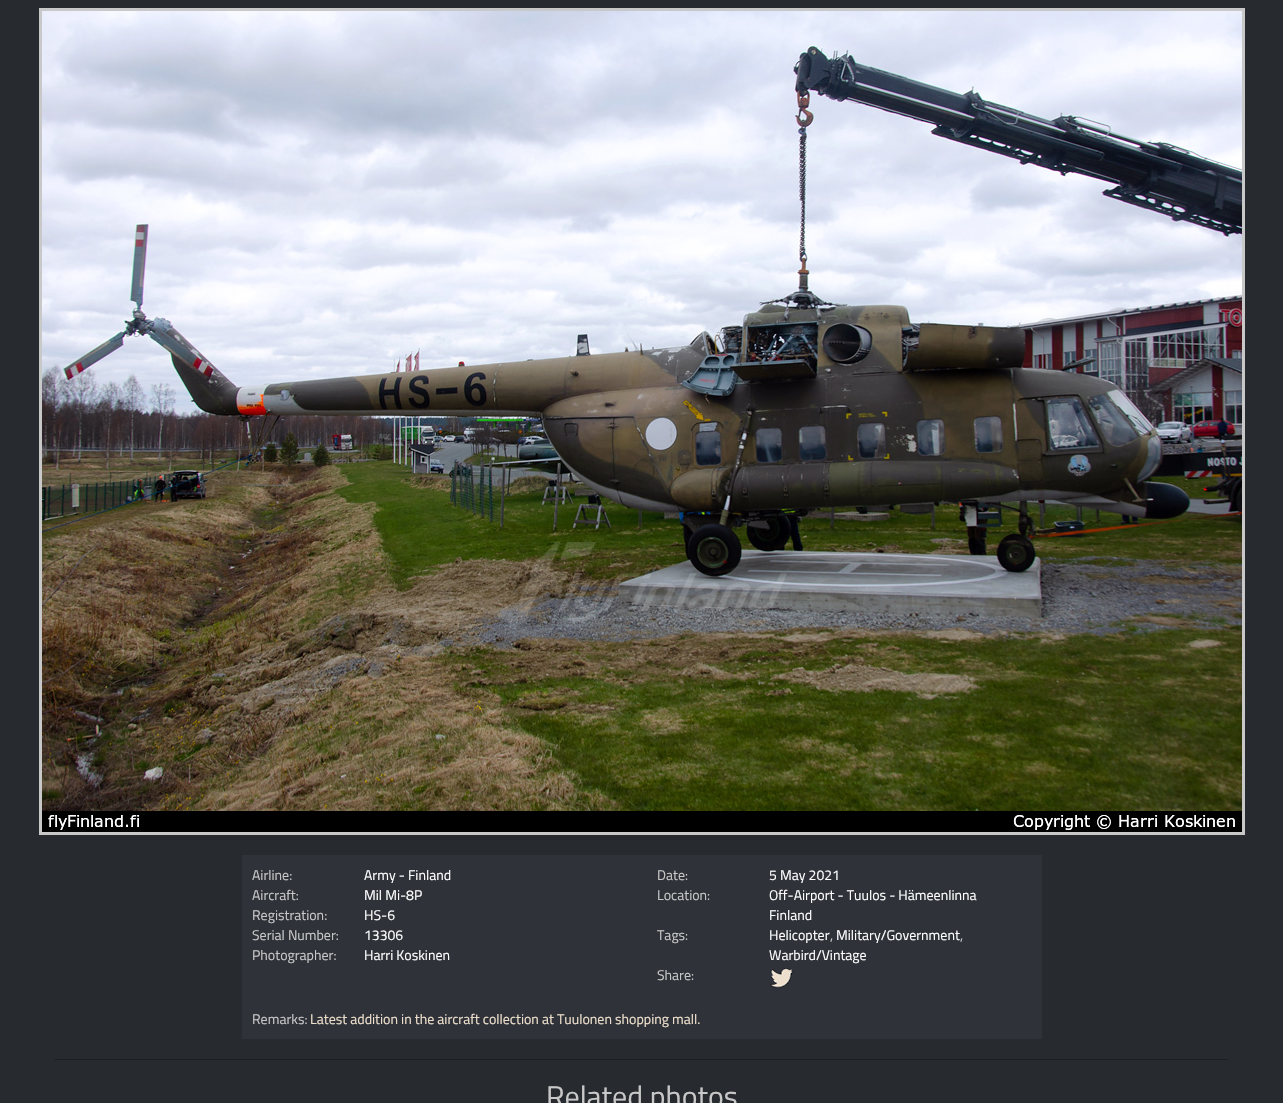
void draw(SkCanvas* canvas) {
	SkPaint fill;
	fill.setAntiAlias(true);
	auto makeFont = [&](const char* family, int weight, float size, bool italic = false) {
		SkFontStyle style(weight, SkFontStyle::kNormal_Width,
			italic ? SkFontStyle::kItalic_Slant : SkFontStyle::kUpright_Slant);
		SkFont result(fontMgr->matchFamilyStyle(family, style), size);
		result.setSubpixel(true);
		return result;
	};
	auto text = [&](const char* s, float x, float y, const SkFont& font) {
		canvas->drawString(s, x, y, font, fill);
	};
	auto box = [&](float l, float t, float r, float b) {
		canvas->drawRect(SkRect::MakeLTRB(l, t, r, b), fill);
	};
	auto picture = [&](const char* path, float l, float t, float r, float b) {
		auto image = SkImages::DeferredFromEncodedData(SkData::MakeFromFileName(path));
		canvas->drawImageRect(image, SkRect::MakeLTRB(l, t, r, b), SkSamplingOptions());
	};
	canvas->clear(0xFF272B30);
	fill.setStyle(SkPaint::kStroke_Style);
	fill.setStrokeWidth(3);
	fill.setColor(0xFFC8C8C8);
	canvas->drawRect(SkRect::MakeLTRB(40.5f, 9.5f, 1243.5f, 833.5f), fill);
	picture("image0.png", 42, 11, 1242, 832);
	fill.setStyle(SkPaint::kFill_Style);
	fill.setColor(0xFF2F3238);
	box(242, 855, 1042, 1039);
	picture("image1.png", 770, 968, 794, 989);
	fill.setColor(0xFF1C1E22);
	box(55, 1059, 1228, 1060);
	auto font1 = makeFont("Titillium Web", 400, 14);
	fill.setColor(0xFFC8C8C8);
	text("Airline:", 252, 880, font1);
	fill.setColor(0xFFFFFFFF);
	text("Army - Finland", 364, 880, font1);
	fill.setColor(0xFFC8C8C8);
	text("Aircraft:", 252, 900, font1);
	fill.setColor(0xFFFFFFFF);
	text("Mil Mi-8P", 364, 900, font1);
	fill.setColor(0xFFC8C8C8);
	text("Registration:", 252, 920, font1);
	fill.setColor(0xFFFFFFFF);
	text("HS-6", 364, 920, font1);
	fill.setColor(0xFFC8C8C8);
	text("Serial Number:", 252, 940, font1);
	fill.setColor(0xFFFFFFFF);
	text("13306", 364, 940, font1);
	fill.setColor(0xFFC8C8C8);
	text("Photographer:", 252, 960, font1);
	fill.setColor(0xFFFFFFFF);
	text("Harri Koskinen", 364, 960, font1);
	fill.setColor(0xFFC8C8C8);
	text("Date:", 657, 880, font1);
	fill.setColor(0xFFFFFFFF);
	text("5 May 2021", 769, 880, font1);
	fill.setColor(0xFFC8C8C8);
	text("Location:", 657, 900, font1);
	fill.setColor(0xFFFFFFFF);
	text("Off-Airport - Tuulos - Hämeenlinna", 769, 900, font1);
	text("Finland", 769, 920, font1);
	fill.setColor(0xFFC8C8C8);
	text("Tags:", 657, 940, font1);
	fill.setColor(0xFFFFFFFF);
	text("Helicopter", 769, 940, font1);
	fill.setColor(0xFFC8C8C8);
	text(",", 830, 940, font1);
	fill.setColor(0xFFFFFFFF);
	text("Military/Government", 836, 940, font1);
	fill.setColor(0xFFC8C8C8);
	text(",", 960, 940, font1);
	fill.setColor(0xFFFFFFFF);
	text("Warbird/Vintage", 769, 960, font1);
	fill.setColor(0xFFC8C8C8);
	text("Share:", 657, 980, font1);
	text("Remarks:", 252, 1024, font1);
	fill.setColor(0xFFEDDFCC);
	text("Latest addition in the aircraft collection at Tuulonen shopping mall.", 310, 1024, font1);
	auto font2 = makeFont("Titillium Web", 400, 30);
	fill.setColor(0xFFC8C8C8);
	text("Related photos", 546, 1107, font2);
}
